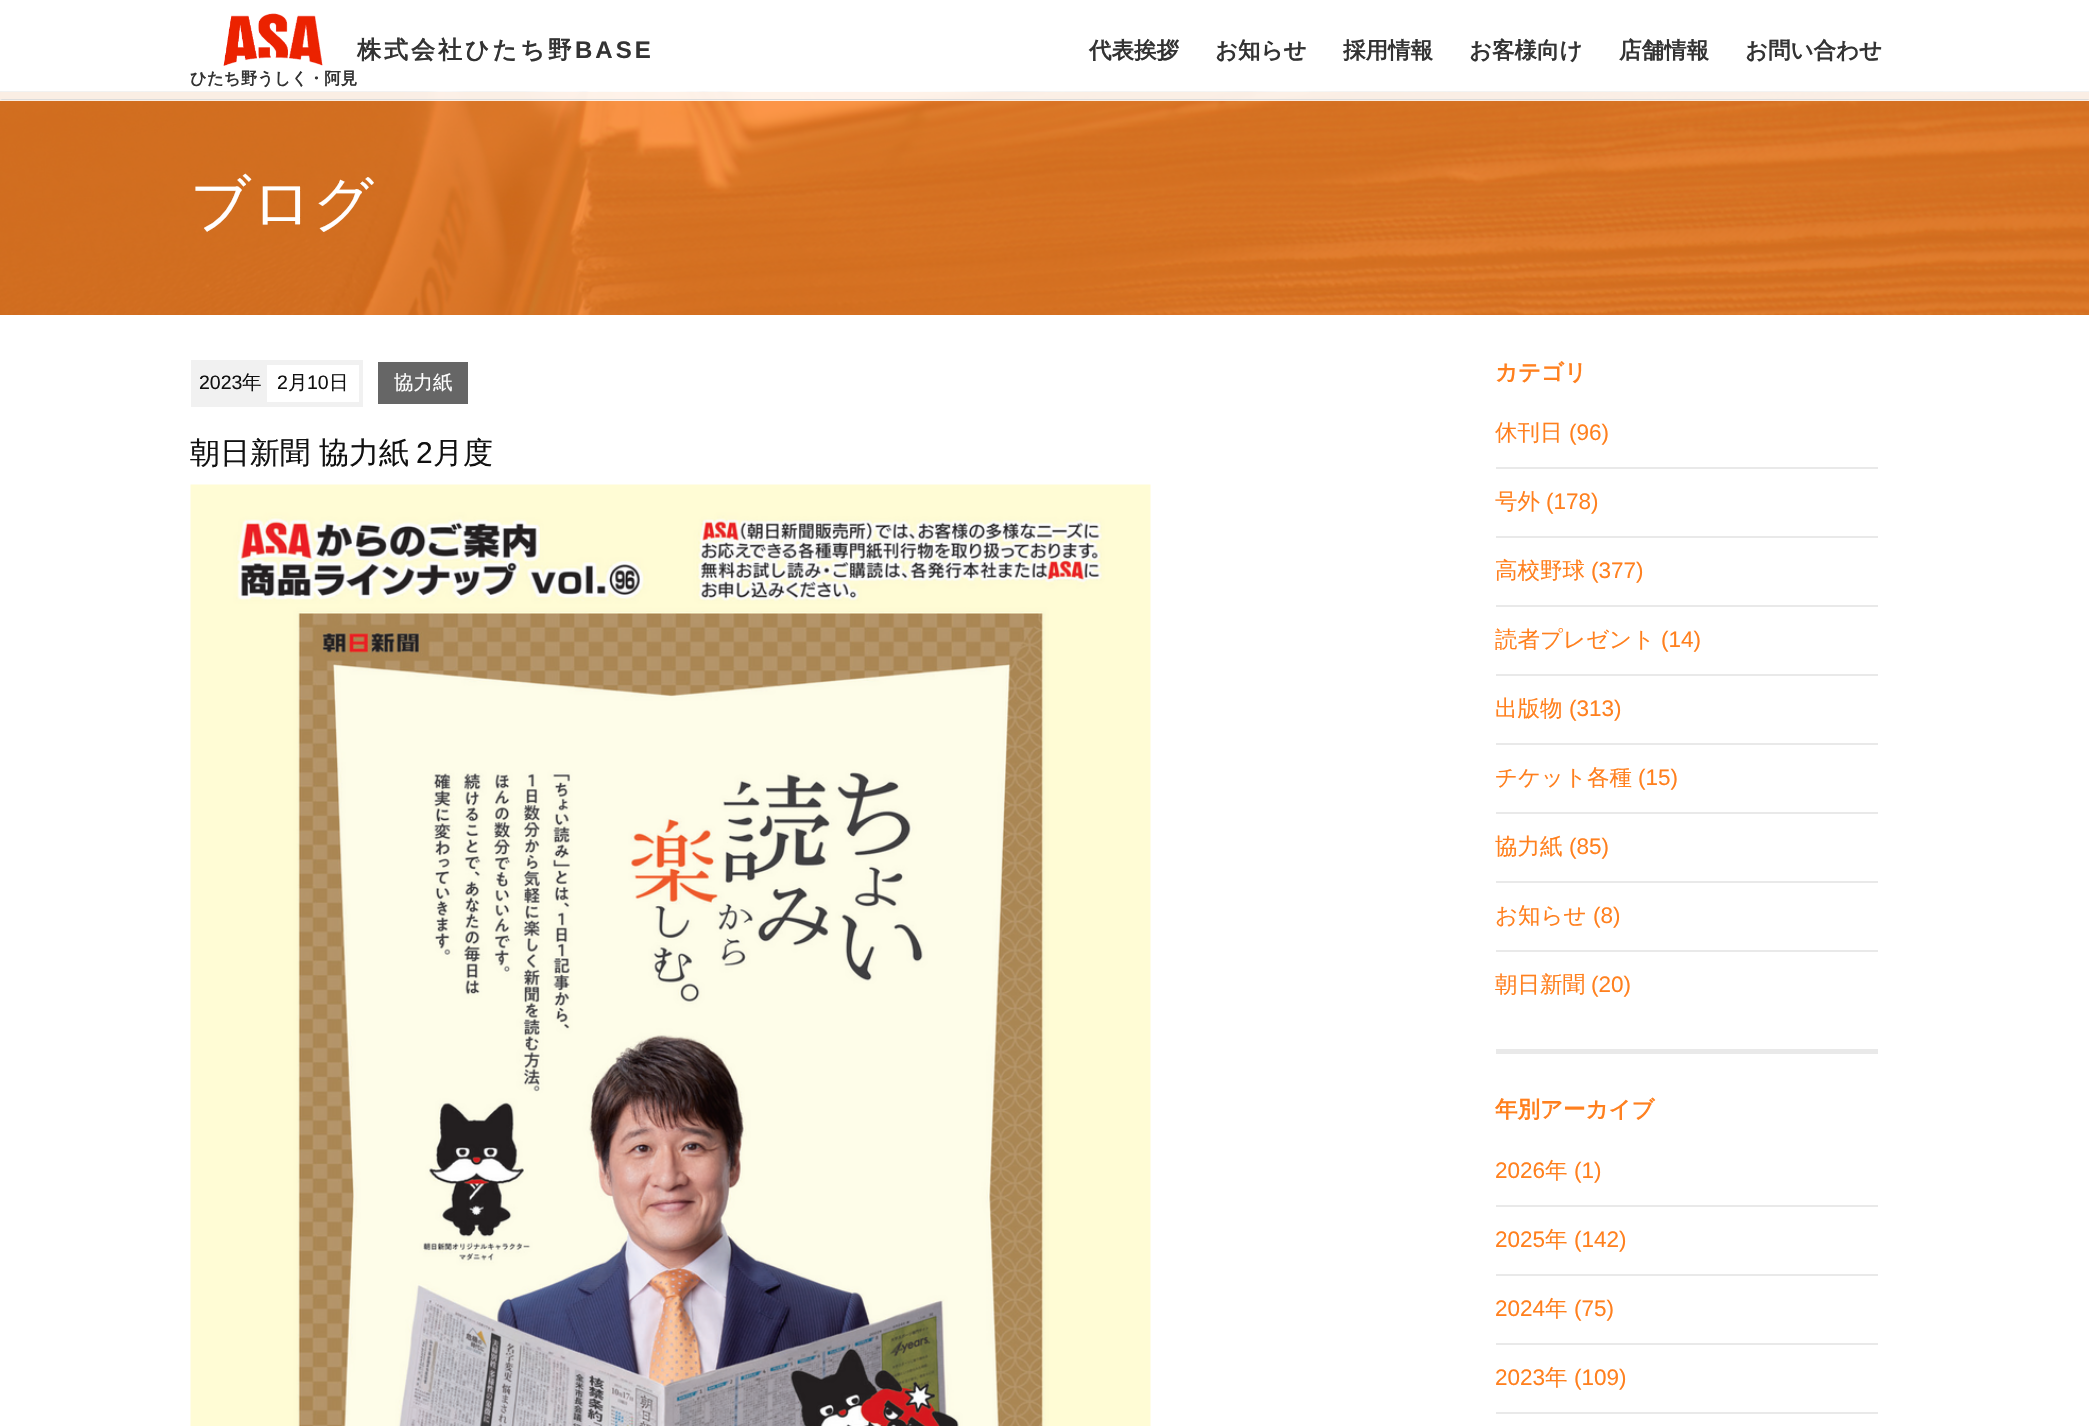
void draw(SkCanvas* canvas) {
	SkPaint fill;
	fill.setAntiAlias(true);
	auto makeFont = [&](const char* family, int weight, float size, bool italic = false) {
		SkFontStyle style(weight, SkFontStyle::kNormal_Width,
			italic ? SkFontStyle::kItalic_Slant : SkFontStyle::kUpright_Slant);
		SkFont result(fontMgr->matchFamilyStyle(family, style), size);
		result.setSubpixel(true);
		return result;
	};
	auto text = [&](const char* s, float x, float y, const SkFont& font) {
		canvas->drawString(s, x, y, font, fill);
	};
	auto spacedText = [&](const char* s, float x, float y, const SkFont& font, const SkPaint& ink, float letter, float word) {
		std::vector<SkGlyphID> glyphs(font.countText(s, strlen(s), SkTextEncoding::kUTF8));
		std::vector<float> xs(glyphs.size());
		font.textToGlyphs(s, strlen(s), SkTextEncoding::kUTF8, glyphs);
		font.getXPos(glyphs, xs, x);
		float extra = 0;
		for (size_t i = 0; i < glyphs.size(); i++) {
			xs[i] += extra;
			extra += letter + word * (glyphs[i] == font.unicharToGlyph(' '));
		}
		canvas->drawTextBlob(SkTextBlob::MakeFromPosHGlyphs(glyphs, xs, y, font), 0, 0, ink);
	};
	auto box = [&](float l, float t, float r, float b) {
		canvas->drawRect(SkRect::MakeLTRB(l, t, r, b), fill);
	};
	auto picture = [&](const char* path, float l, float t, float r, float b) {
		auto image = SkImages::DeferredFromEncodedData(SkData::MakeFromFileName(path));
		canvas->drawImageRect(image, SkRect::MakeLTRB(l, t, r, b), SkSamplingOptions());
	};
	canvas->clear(0xFFFFFFFF);
	picture("image1.png", 0, 91, 2089, 315);
	fill.setColor(0xE0FFFFFF);
	box(0, 91, 2089, 101);
	fill.setColor(0xFFDCDCDC);
	canvas->drawPath(SkPathBuilder().moveTo(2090, 100).lineTo(0, 100).lineTo(2, 99).lineTo(2088, 99).close().detach(), fill);
	picture("image0.png", 223, 13, 323, 66);
	fill.setColor(0xFFF1F1F1);
	box(191, 360, 363, 407);
	fill.setColor(0xFFFFFFFF);
	box(267, 365, 359, 402);
	fill.setColor(0xFF666666);
	box(378, 362, 468, 404);
	picture("image2.png", 190, 484, 1151, 1426);
	fill.setColor(0xFFE9E9E9);
	box(1496, 1049, 1878, 1054);
	box(1496, 467, 1878, 469);
	box(1496, 536, 1878, 538);
	box(1496, 605, 1878, 607);
	box(1496, 674, 1878, 676);
	box(1496, 743, 1878, 745);
	box(1496, 812, 1878, 814);
	box(1496, 881, 1878, 883);
	box(1496, 950, 1878, 952);
	box(1496, 1205, 1878, 1207);
	box(1496, 1274, 1878, 1276);
	box(1496, 1343, 1878, 1345);
	box(1496, 1412, 1878, 1414);
	auto font1 = makeFont("WenQuanYi Zen Hei", 700, 24);
	fill.setColor(0xFF333333);
	spacedText("株式会社ひたち野", 357, 58, font1, fill, 3, 0);
	auto font2 = makeFont("Liberation Sans", 700, 24);
	spacedText("BASE", 575, 58, font2, fill, 3, 0);
	auto font3 = makeFont("WenQuanYi Zen Hei", 700, 16.5f);
	text("ひたち野うしく・阿見", 190, 84, font3);
	auto font4 = makeFont("WenQuanYi Zen Hei", 700, 22.5f);
	text("代表挨拶", 1089, 58, font4);
	text("お知らせ", 1215, 58, font4);
	text("採用情報", 1343, 58, font4);
	text("お客様向け", 1469, 58, font4);
	text("店舗情報", 1619, 58, font4);
	text("お問い合わせ", 1745, 58, font4);
	auto font5 = makeFont("WenQuanYi Zen Hei", 500, 60);
	fill.setColor(0xFFFFFFFF);
	text("ブログ", 190, 224, font5);
	auto font6 = makeFont("Liberation Sans", 400, 19.5f);
	fill.setColor(0xFF111111);
	text("2023", 199, 389, font6);
	auto font7 = makeFont("WenQuanYi Zen Hei", 500, 19.5f);
	text("年", 242, 389, font7);
	text("2", 277, 389, font6);
	text("月", 288, 389, font7);
	text("10", 307, 389, font6);
	text("日", 329, 389, font7);
	fill.setColor(0xFFFFFFFF);
	text("協力紙", 394, 389, font7);
	auto font8 = makeFont("WenQuanYi Zen Hei", 500, 30);
	fill.setColor(0xFF111111);
	text("朝日新聞 協力紙", 190, 463, font8);
	auto font9 = makeFont("Liberation Sans", 400, 30);
	text("2", 416, 463, font9);
	text("月度", 433, 463, font8);
	fill.setColor(0xFFFF801E);
	text("カテゴリ", 1495, 380, font4);
	auto font10 = makeFont("WenQuanYi Zen Hei", 500, 22.5f);
	text("休刊日", 1495, 440, font10);
	auto font11 = makeFont("Liberation Sans", 400, 22.5f);
	text("(96)", 1569, 440, font11);
	text("号外", 1495, 509, font10);
	text("(178)", 1546, 509, font11);
	text("高校野球", 1495, 578, font10);
	text("(377)", 1591, 578, font11);
	text("読者プレゼント", 1495, 647, font10);
	text("(14)", 1661, 647, font11);
	text("出版物", 1495, 716, font10);
	text("(313)", 1569, 716, font11);
	text("チケット各種", 1495, 785, font10);
	text("(15)", 1638, 785, font11);
	text("協力紙", 1495, 854, font10);
	text("(85)", 1569, 854, font11);
	text("お知らせ", 1495, 923, font10);
	text("(8)", 1593, 923, font11);
	text("朝日新聞", 1495, 992, font10);
	text("(20)", 1591, 992, font11);
	text("年別アーカイブ", 1495, 1117, font4);
	text("2026", 1495, 1178, font11);
	text("年", 1545, 1178, font10);
	text("(1)", 1574, 1178, font11);
	text("2025", 1495, 1247, font11);
	text("年", 1545, 1247, font10);
	text("(142)", 1574, 1247, font11);
	text("2024", 1495, 1316, font11);
	text("年", 1545, 1316, font10);
	text("(75)", 1574, 1316, font11);
	text("2023", 1495, 1385, font11);
	text("年", 1545, 1385, font10);
	text("(109)", 1574, 1385, font11);
}
